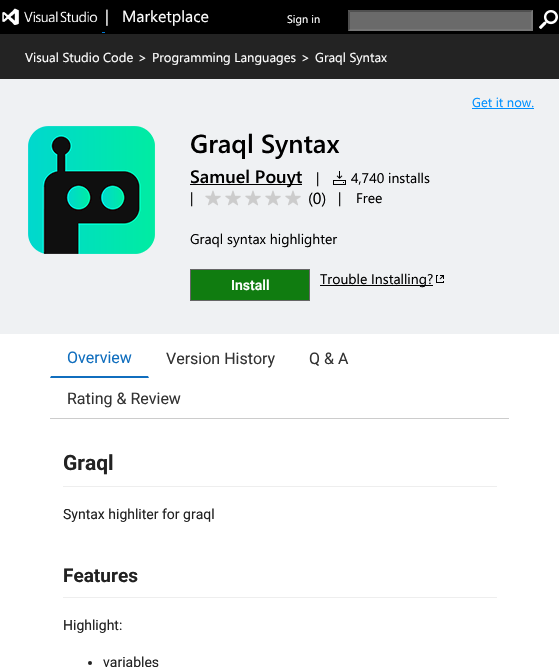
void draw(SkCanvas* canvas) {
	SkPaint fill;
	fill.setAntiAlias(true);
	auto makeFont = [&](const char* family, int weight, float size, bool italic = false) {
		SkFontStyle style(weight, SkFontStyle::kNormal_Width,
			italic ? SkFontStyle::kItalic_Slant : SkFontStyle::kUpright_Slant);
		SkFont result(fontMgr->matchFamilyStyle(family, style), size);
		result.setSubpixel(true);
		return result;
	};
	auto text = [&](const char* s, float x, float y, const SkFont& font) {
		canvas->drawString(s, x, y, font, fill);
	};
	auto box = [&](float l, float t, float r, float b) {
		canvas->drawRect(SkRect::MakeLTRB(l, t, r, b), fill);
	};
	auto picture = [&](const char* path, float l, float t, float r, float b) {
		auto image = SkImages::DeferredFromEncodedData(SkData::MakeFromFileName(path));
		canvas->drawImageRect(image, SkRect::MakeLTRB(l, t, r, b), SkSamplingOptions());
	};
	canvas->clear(0xFFFFFFFF);
	fill.setColor(0xFF000000);
	box(0, 0, 559, 34);
	picture("image0.png", 2, 8, 98, 25);
	fill.setColor(0xFF0078D4);
	box(102, 32, 105, 33);
	fill.setColor(0xFF6A6A6A);
	box(348, 10, 533, 31);
	fill.setColor(0xFF4F4F4F);
	canvas->drawPath(SkPathBuilder().moveTo(348, 10).lineTo(533, 10).lineTo(531, 12).lineTo(350, 12).close().detach(), fill);
	fill.setColor(0xFF767676);
	canvas->drawPath(SkPathBuilder().moveTo(533, 10).lineTo(533, 31).lineTo(531, 29).lineTo(531, 12).close().detach(), fill);
	canvas->drawPath(SkPathBuilder().moveTo(533, 31).lineTo(348, 31).lineTo(350, 29).lineTo(531, 29).close().detach(), fill);
	fill.setColor(0xFF4F4F4F);
	canvas->drawPath(SkPathBuilder().moveTo(348, 31).lineTo(348, 10).lineTo(350, 12).lineTo(350, 29).close().detach(), fill);
	picture("image1.png", 539, 10, 558, 29);
	fill.setColor(0xFF232323);
	box(0, 34, 559, 79);
	fill.setColor(0xFFEFF1F3);
	box(0, 79, 559, 334);
	fill.setColor(0xFF0090FF);
	box(472, 108, 534, 109);
	picture("image2.png", 28, 126, 155, 254);
	fill.setColor(0xFF000000);
	box(190, 184, 302, 185);
	picture("image3.png", 333, 171, 346, 185);
	picture("image4.png", 205, 190, 221, 206);
	picture("image4.png", 225, 190, 241, 206);
	picture("image4.png", 245, 190, 261, 206);
	picture("image4.png", 265, 190, 281, 206);
	picture("image4.png", 285, 190, 301, 206);
	fill.setColor(0xFF107C10);
	canvas->drawRect(SkRect::MakeLTRB(190.5f, 269.5f, 309.5f, 300.5f), fill);
	fill.setStyle(SkPaint::kStroke_Style);
	fill.setStrokeWidth(1);
	fill.setColor(0xFF666666);
	canvas->drawRect(SkRect::MakeLTRB(190.5f, 269.5f, 309.5f, 300.5f), fill);
	fill.setStyle(SkPaint::kFill_Style);
	fill.setColor(0xFF000000);
	box(320, 285, 433, 286);
	picture("image5.png", 436, 275, 444, 283);
	fill.setColor(0xFFCCCCCC);
	box(50, 418, 509, 419);
	fill.setColor(0xFF106EBE);
	canvas->drawPath(SkPathBuilder().moveTo(149, 378).lineTo(50, 378).lineTo(51, 376).lineTo(148, 376).close().detach(), fill);
	fill.setColor(0xFFEEEEEE);
	box(63, 486, 497, 487);
	box(63, 597, 497, 598);
	fill.setColor(0xFF222222);
	canvas->drawCircle(90, 663, 2, fill);
	auto font1 = makeFont("Segoe UI", 400, 16);
	fill.setColor(0xFFFFFFFF);
	text("|   Marketplace", 105, 22, font1);
	auto font2 = makeFont("Segoe UI", 400, 11);
	text("Sign in", 287, 23, font2);
	auto font3 = makeFont("Segoe UI", 400, 13);
	text("Visual Studio Code", 25, 62, font3);
	text(">", 138, 62, font3);
	text("Programming Languages", 152, 62, font3);
	text(">", 301, 62, font3);
	text("Graql Syntax", 315, 62, font3);
	fill.setColor(0xFF0090FF);
	text("Get it now.", 472, 107, font3);
	auto font4 = makeFont("Segoe UI", 600, 26);
	fill.setColor(0xFF000000);
	text("Graql Syntax", 190, 153, font4);
	auto font5 = makeFont("Segoe UI", 600, 18);
	text("Samuel Pouyt", 190, 183, font5);
	auto font6 = makeFont("Segoe UI", 400, 14);
	text("|", 316, 183, font6);
	text("4,740 installs", 351, 183, font6);
	text("|", 190, 203, font6);
	text("(0)", 308, 204, font1);
	text("|", 338, 203, font6);
	text("Free", 356, 203, font6);
	text("Graql syntax highlighter", 190, 244, font6);
	auto font7 = makeFont("Roboto", 600, 14);
	fill.setColor(0xFFFFFFFF);
	text("Install", 231, 290, font7);
	fill.setColor(0xFF000000);
	text("Trouble Installing?", 320, 284, font6);
	auto font8 = makeFont("Roboto", 400, 16);
	fill.setColor(0xFF106EBE);
	text("Overview", 67, 363, font8);
	fill.setColor(0xFF333333);
	text("Version History", 166, 364, font8);
	text("Q & A", 309, 364, font8);
	text("Rating & Review", 67, 404, font8);
	auto font9 = makeFont("Roboto", 700, 21);
	fill.setColor(0xFF222222);
	text("Graql", 63, 470, font9);
	auto font10 = makeFont("Roboto", 400, 14);
	text("Syntax highliter for graql", 63, 519, font10);
	auto font11 = makeFont("Roboto", 700, 19);
	text("Features", 63, 582, font11);
	text("Highlight:", 63, 630, font10);
	text("variables", 103, 667, font10);
}
